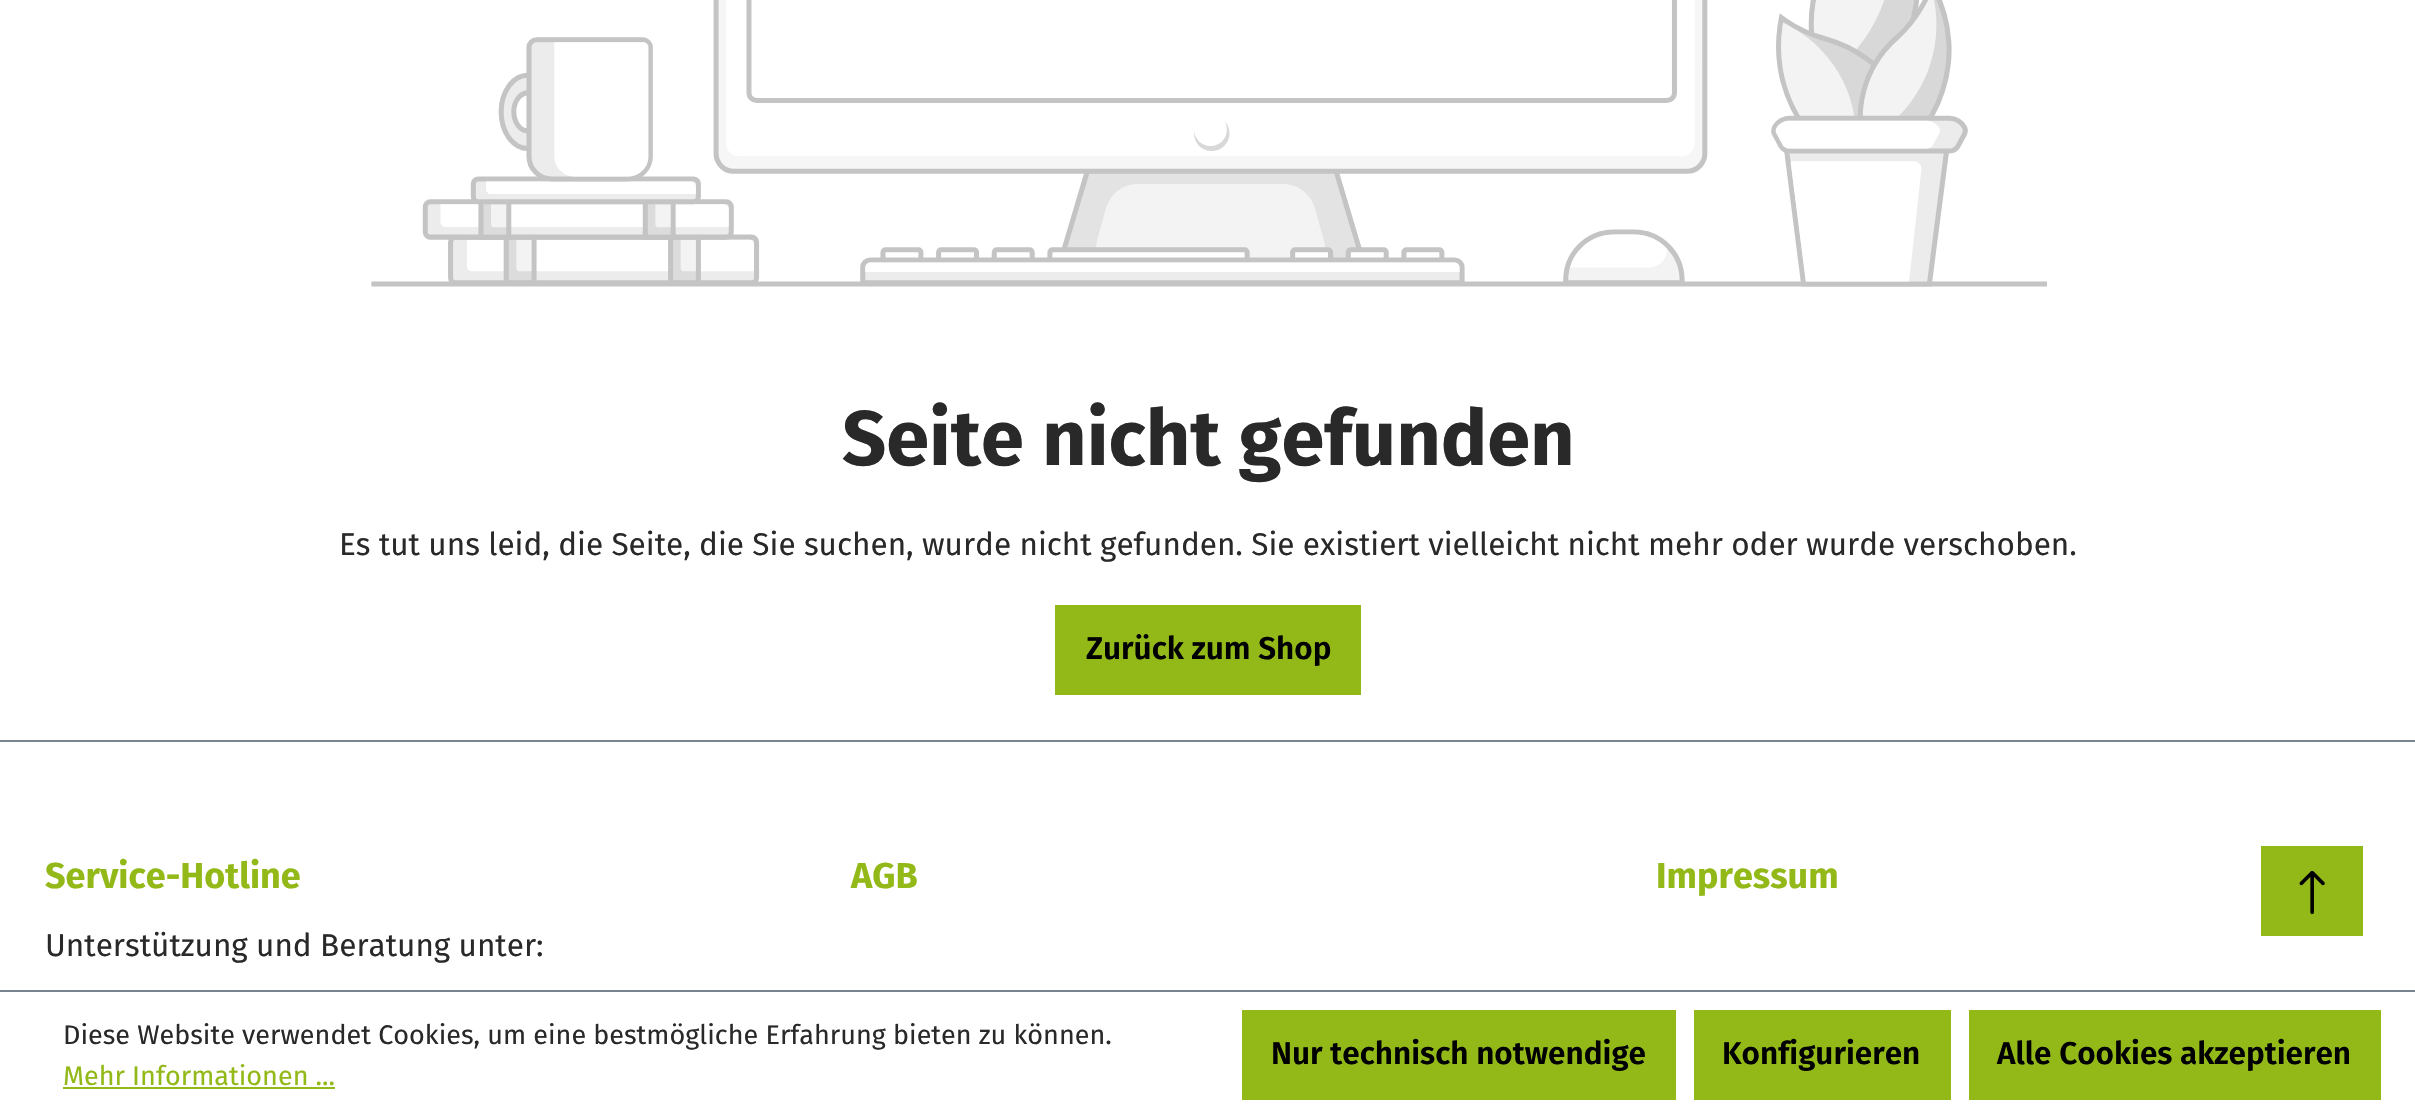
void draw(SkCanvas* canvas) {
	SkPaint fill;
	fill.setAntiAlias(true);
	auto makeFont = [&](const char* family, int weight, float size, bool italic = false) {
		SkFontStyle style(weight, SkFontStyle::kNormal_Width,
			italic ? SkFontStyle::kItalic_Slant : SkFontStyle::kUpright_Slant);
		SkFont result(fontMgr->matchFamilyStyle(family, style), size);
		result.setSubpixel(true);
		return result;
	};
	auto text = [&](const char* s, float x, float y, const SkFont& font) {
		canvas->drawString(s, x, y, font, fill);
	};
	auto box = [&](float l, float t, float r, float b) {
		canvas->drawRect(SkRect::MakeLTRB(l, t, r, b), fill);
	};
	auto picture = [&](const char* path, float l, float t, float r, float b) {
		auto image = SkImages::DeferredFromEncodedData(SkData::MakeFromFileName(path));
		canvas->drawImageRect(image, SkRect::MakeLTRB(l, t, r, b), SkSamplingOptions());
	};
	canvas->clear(0xFFFFFFFF);
	picture("image0.png", 371, 0, 2047, 287);
	fill.setColor(0xFF93B918);
	box(1055, 605, 1361, 695);
	fill.setColor(0xFF798490);
	box(0, 740, 2415, 742);
	fill.setColor(0xFF93B918);
	box(2261, 846, 2363, 936);
	picture("image1.png", 2299, 871, 2325, 914);
	fill.setColor(0xFF798490);
	box(0, 990, 2415, 992);
	fill.setColor(0xFF93B918);
	box(63, 1087, 335, 1089);
	box(1242, 1010, 1676, 1100);
	box(1694, 1010, 1951, 1100);
	box(1969, 1010, 2381, 1100);
	auto font1 = makeFont("Fira Sans", 700, 77.5f);
	fill.setColor(0xFF292929);
	text("Seite nicht gefunden", 842, 465, font1);
	auto font2 = makeFont("Fira Sans", 400, 31.5f);
	text("Es tut uns leid, die Seite, die Sie suchen, wurde nicht gefunden. Sie existiert vielleicht nicht mehr oder wurde verschoben.", 339, 555, font2);
	auto font3 = makeFont("Fira Sans", 600, 31.5f);
	fill.setColor(0xFF000000);
	text("Zurück zum Shop", 1086, 659, font3);
	auto font4 = makeFont("Fira Sans", 700, 36);
	fill.setColor(0xFF93B918);
	text("Service-Hotline", 45, 888, font4);
	fill.setColor(0xFF292929);
	text("Unterstützung und Beratung unter:", 45, 956, font2);
	fill.setColor(0xFF93B918);
	text("AGB", 851, 888, font4);
	text("Impressum", 1656, 888, font4);
	auto font5 = makeFont("Fira Sans", 400, 27);
	fill.setColor(0xFF292929);
	text("Diese Website verwendet Cookies, um eine bestmögliche Erfahrung bieten zu können.", 63, 1044, font5);
	fill.setColor(0xFF93B918);
	text("Mehr Informationen ...", 63, 1085, font5);
	fill.setColor(0xFF000000);
	text("Nur technisch notwendige", 1271, 1064, font3);
	text("Konfigurieren", 1722, 1064, font3);
	text("Alle Cookies akzeptieren", 1997, 1064, font3);
}
